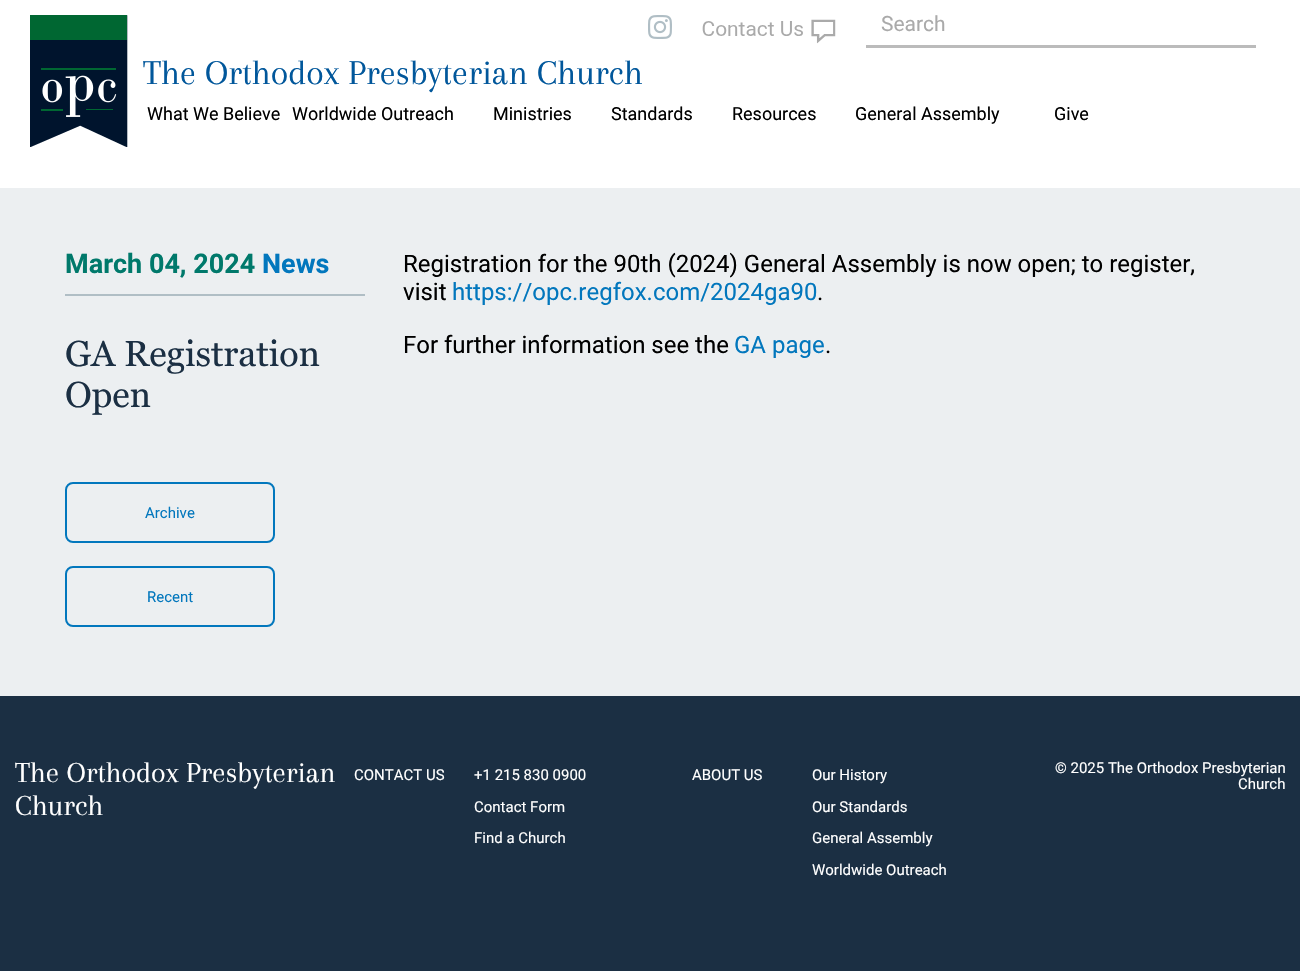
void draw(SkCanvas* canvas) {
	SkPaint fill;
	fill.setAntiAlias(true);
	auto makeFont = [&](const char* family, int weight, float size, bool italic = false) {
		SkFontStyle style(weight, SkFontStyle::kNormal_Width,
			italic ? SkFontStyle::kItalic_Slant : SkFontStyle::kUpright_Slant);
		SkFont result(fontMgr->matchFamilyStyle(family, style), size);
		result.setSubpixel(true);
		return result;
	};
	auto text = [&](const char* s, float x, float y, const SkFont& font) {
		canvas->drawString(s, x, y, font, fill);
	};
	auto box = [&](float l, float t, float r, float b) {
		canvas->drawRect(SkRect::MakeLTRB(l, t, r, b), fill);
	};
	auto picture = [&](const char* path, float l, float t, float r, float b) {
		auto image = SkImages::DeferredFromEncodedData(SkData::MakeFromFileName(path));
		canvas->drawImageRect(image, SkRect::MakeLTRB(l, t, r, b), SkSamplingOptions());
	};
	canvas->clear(0xFFECEFF1);
	fill.setColor(0xFFFFFFFF);
	box(0, 0, 1300, 188);
	picture("image0.png", 648, 15, 672, 39);
	picture("image1.png", 702, 19, 836, 44);
	fill.setColor(0xFFBBBBBB);
	box(866, 45, 1256, 48);
	picture("image2.png", 30, 15, 128, 147);
	fill.setColor(0xFFB0BEC5);
	box(65, 294, 365, 296);
	fill.setStyle(SkPaint::kStroke_Style);
	fill.setStrokeWidth(2);
	fill.setColor(0xFF0277BD);
	canvas->drawRoundRect(SkRect::MakeLTRB(66, 483, 274, 542), 7, 7, fill);
	canvas->drawRoundRect(SkRect::MakeLTRB(66, 567, 274, 626), 7, 7, fill);
	fill.setStyle(SkPaint::kFill_Style);
	fill.setColor(0xFF1B2F43);
	box(0, 696, 1300, 971);
	auto font1 = makeFont("Roboto", 400, 21);
	fill.setColor(0xFFAAAAAA);
	text("Search", 881, 31, font1);
	auto font2 = makeFont("Arapey", 400, 36);
	fill.setColor(0xFF01579B);
	text("The Orthodox Presbyterian Church", 143, 84, font2);
	auto font3 = makeFont("Roboto", 400, 18);
	fill.setColor(0xFF000000);
	text("What We Believe", 147, 120, font3);
	text("Worldwide Outreach", 292, 120, font3);
	text("Ministries", 493, 120, font3);
	text("Standards", 611, 120, font3);
	text("Resources", 732, 120, font3);
	text("General Assembly", 855, 120, font3);
	text("Give", 1054, 120, font3);
	auto font4 = makeFont("Roboto", 700, 27);
	fill.setColor(0xFF00796B);
	text("March 04, 2024", 65, 273, font4);
	fill.setColor(0xFF0277BD);
	text("News", 262, 273, font4);
	auto font5 = makeFont("Georgia", 400, 36);
	fill.setColor(0xFF1B2F43);
	text("GA Registration", 65, 366, font5);
	text("Open", 65, 407, font5);
	auto font6 = makeFont("Roboto", 400, 15);
	fill.setColor(0xFF0277BD);
	text("Archive", 145, 518, font6);
	text("Recent", 147, 602, font6);
	auto font7 = makeFont("Roboto", 400, 24);
	fill.setColor(0xFF000000);
	text("Registration for the 90th (2024) General Assembly is now open; to register,", 403, 272, font7);
	text("visit", 403, 300, font7);
	fill.setColor(0xFF0277BD);
	text("https://opc.regfox.com/2024ga90", 452, 300, font7);
	fill.setColor(0xFF000000);
	text(".", 817, 300, font7);
	text("For further information see the", 403, 353, font7);
	fill.setColor(0xFF0277BD);
	text("GA page", 734, 353, font7);
	fill.setColor(0xFF000000);
	text(".", 825, 353, font7);
	auto font8 = makeFont("Arapey", 400, 30);
	fill.setColor(0xFFFFFFFF);
	text("The Orthodox Presbyterian", 15, 782, font8);
	text("Church", 15, 815, font8);
	text("CONTACT US", 354, 780, font6);
	text("+1 215 830 0900", 474, 780, font6);
	text("Contact Form", 474, 812, font6);
	text("Find a Church", 474, 843, font6);
	text("ABOUT US", 692, 780, font6);
	text("Our History", 812, 780, font6);
	text("Our Standards", 812, 812, font6);
	text("General Assembly", 812, 843, font6);
	text("Worldwide Outreach", 812, 875, font6);
	text("© 2025 The Orthodox Presbyterian", 1055, 773, font6);
	text("Church", 1238, 789, font6);
}
